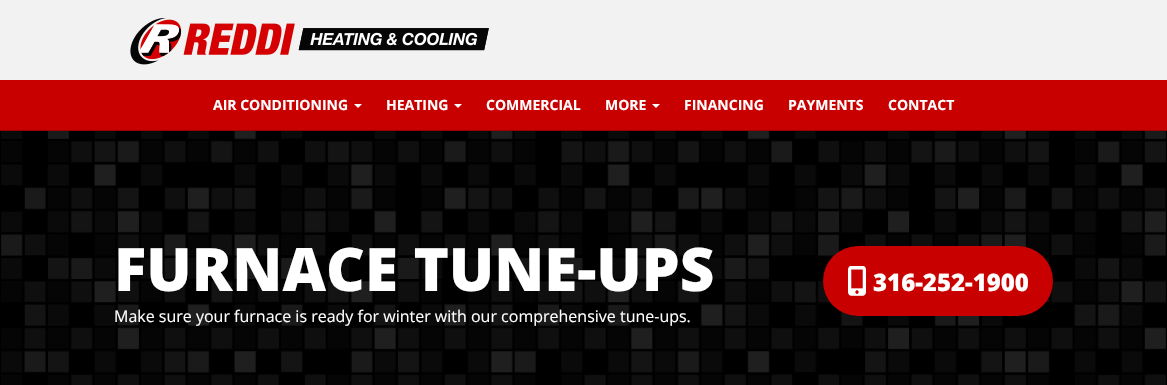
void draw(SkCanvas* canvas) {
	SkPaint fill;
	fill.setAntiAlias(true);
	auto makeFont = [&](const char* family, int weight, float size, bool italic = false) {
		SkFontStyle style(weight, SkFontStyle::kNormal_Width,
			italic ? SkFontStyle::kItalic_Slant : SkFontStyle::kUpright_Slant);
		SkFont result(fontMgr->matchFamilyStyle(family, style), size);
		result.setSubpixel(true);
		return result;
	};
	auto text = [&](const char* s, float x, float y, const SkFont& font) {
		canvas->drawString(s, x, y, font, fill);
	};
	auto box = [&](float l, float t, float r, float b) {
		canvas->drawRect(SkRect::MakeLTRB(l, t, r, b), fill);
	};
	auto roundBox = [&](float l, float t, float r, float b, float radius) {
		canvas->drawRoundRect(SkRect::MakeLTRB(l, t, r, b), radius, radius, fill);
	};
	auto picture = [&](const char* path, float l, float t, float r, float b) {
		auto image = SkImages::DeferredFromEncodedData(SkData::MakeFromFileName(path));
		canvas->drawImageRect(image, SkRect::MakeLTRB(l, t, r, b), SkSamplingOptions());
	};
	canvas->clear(0xFF000000);
	fill.setColor(0xFFF2F2F2);
	box(0, 0, 1167, 80);
	picture("image0.png", 130, 18, 489, 65);
	fill.setColor(0xFFC90000);
	box(0, 80, 1167, 130);
	fill.setColor(0xFF990000);
	box(0, 130, 1167, 131);
	fill.setColor(0xFFFFFFFF);
	canvas->drawPath(SkPathBuilder().moveTo(354, 104).lineTo(362, 104).lineTo(358, 108).close().detach(), fill);
	canvas->drawPath(SkPathBuilder().moveTo(454, 104).lineTo(462, 104).lineTo(458, 108).close().detach(), fill);
	canvas->drawPath(SkPathBuilder().moveTo(652, 104).lineTo(660, 104).lineTo(656, 108).close().detach(), fill);
	picture("image1.png", 1, 131, 1166, 385);
	fill.setColor(0xFFC90000);
	roundBox(823, 246, 1053, 316, 35);
	picture("image2.png", 848, 266, 866, 296);
	auto font1 = makeFont("Open Sans", 700, 14);
	fill.setColor(0xFFFFFFFF);
	text("AIR CONDITIONING", 213, 110, font1);
	text("HEATING", 386, 110, font1);
	text("COMMERCIAL", 486, 110, font1);
	text("MORE", 605, 110, font1);
	text("FINANCING", 684, 110, font1);
	text("PAYMENTS", 788, 110, font1);
	text("CONTACT", 888, 110, font1);
	auto font2 = makeFont("Open Sans", 800, 60);
	text("FURNACE TUNE-UPS", 114, 291, font2);
	auto font3 = makeFont("Open Sans", 400, 16);
	text("Make sure your furnace is ready for winter with our comprehensive tune-ups.", 114, 322, font3);
	auto font4 = makeFont("Open Sans", 800, 24);
	text("316-252-1900", 873, 291, font4);
}
